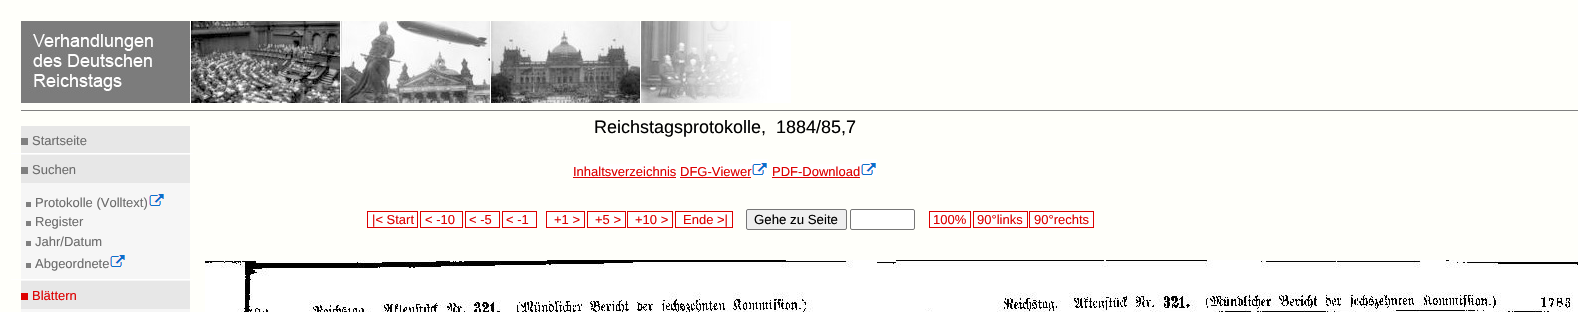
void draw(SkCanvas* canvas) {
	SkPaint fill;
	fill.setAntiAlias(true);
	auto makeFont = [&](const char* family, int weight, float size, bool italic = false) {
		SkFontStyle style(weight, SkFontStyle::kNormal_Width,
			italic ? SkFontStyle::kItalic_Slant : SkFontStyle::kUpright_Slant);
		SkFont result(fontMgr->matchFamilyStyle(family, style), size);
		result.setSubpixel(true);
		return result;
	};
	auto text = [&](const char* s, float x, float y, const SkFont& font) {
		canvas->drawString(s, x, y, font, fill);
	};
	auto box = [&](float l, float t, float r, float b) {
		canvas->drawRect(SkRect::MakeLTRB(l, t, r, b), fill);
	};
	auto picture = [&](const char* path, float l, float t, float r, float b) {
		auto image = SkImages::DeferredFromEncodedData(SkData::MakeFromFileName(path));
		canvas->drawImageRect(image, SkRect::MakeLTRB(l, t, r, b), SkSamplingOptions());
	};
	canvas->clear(0xFFFFFFFA);
	picture("image0.png", 21, 21, 791, 103);
	fill.setColor(0xFF808080);
	box(21, 110, 1578, 111);
	fill.setColor(0xFFF6F6F6);
	box(21, 154, 190, 312);
	fill.setColor(0xFFE7E7E7);
	box(21, 126, 190, 153);
	fill.setColor(0xFF808080);
	box(21, 138, 28, 145);
	fill.setColor(0xFFFFFFFF);
	box(11, 153, 193, 154);
	fill.setColor(0xFFE7E7E7);
	box(21, 155, 190, 183);
	fill.setColor(0xFF808080);
	box(21, 167, 28, 174);
	box(26, 202, 31, 207);
	picture("image1.png", 149, 194, 164, 206);
	box(26, 221, 31, 226);
	box(26, 241, 31, 246);
	box(26, 263, 31, 268);
	picture("image1.png", 110, 255, 125, 267);
	fill.setColor(0xFFFFFFFF);
	box(11, 279, 193, 280);
	fill.setColor(0xFFE7E7E7);
	box(21, 281, 190, 309);
	fill.setColor(0xFFDE0000);
	box(21, 293, 28, 300);
	fill.setColor(0xFFFFFFFF);
	box(573, 164, 676, 179);
	fill.setColor(0xFFDD0000);
	box(573, 177, 676, 178);
	fill.setColor(0xFFFFFFFF);
	box(680, 164, 751, 179);
	box(751, 159, 768, 176);
	fill.setColor(0xFFDD0000);
	box(680, 177, 751, 178);
	picture("image2.png", 752, 163, 767, 175);
	fill.setColor(0xFFFFFFFF);
	box(772, 164, 860, 179);
	box(860, 159, 877, 176);
	fill.setColor(0xFFDD0000);
	box(772, 177, 860, 178);
	picture("image2.png", 861, 163, 876, 175);
	fill.setColor(0xFFFFFFFF);
	box(368, 212, 417, 227);
	fill.setStyle(SkPaint::kStroke_Style);
	fill.setStrokeWidth(1);
	fill.setColor(0xFFDD0000);
	canvas->drawRect(SkRect::MakeLTRB(367.5f, 211.5f, 417.5f, 227.5f), fill);
	fill.setStyle(SkPaint::kFill_Style);
	fill.setColor(0xFFFFFFFF);
	box(421, 212, 462, 227);
	fill.setStyle(SkPaint::kStroke_Style);
	fill.setColor(0xFFDD0000);
	canvas->drawRect(SkRect::MakeLTRB(420.5f, 211.5f, 462.5f, 227.5f), fill);
	fill.setStyle(SkPaint::kFill_Style);
	fill.setColor(0xFFFFFFFF);
	box(466, 212, 499, 227);
	fill.setStyle(SkPaint::kStroke_Style);
	fill.setColor(0xFFDD0000);
	canvas->drawRect(SkRect::MakeLTRB(465.5f, 211.5f, 499.5f, 227.5f), fill);
	fill.setStyle(SkPaint::kFill_Style);
	fill.setColor(0xFFFFFFFF);
	box(503, 212, 536, 227);
	fill.setStyle(SkPaint::kStroke_Style);
	fill.setColor(0xFFDD0000);
	canvas->drawRect(SkRect::MakeLTRB(502.5f, 211.5f, 536.5f, 227.5f), fill);
	fill.setStyle(SkPaint::kFill_Style);
	fill.setColor(0xFFFFFFFF);
	box(547, 212, 584, 227);
	fill.setStyle(SkPaint::kStroke_Style);
	fill.setColor(0xFFDD0000);
	canvas->drawRect(SkRect::MakeLTRB(546.5f, 211.5f, 584.5f, 227.5f), fill);
	fill.setStyle(SkPaint::kFill_Style);
	fill.setColor(0xFFFFFFFF);
	box(588, 212, 625, 227);
	fill.setStyle(SkPaint::kStroke_Style);
	fill.setColor(0xFFDD0000);
	canvas->drawRect(SkRect::MakeLTRB(587.5f, 211.5f, 625.5f, 227.5f), fill);
	fill.setStyle(SkPaint::kFill_Style);
	fill.setColor(0xFFFFFFFF);
	box(628, 212, 672, 227);
	fill.setStyle(SkPaint::kStroke_Style);
	fill.setColor(0xFFDD0000);
	canvas->drawRect(SkRect::MakeLTRB(627.5f, 211.5f, 672.5f, 227.5f), fill);
	fill.setStyle(SkPaint::kFill_Style);
	fill.setColor(0xFFFFFFFF);
	box(676, 212, 732, 227);
	fill.setStyle(SkPaint::kStroke_Style);
	fill.setColor(0xFFDD0000);
	canvas->drawRect(SkRect::MakeLTRB(675.5f, 211.5f, 732.5f, 227.5f), fill);
	fill.setStyle(SkPaint::kFill_Style);
	fill.setColor(0xFFEFEFEF);
	canvas->drawRoundRect(SkRect::MakeLTRB(746.5f, 209.5f, 846.5f, 229.5f), 1.5f, 1.5f, fill);
	fill.setStyle(SkPaint::kStroke_Style);
	fill.setColor(0xFF767676);
	canvas->drawRoundRect(SkRect::MakeLTRB(746.5f, 209.5f, 846.5f, 229.5f), 1.5f, 1.5f, fill);
	fill.setStyle(SkPaint::kFill_Style);
	fill.setColor(0xFFFFFFFF);
	canvas->drawRoundRect(SkRect::MakeLTRB(850.5f, 209.5f, 914.5f, 229.5f), 1.5f, 1.5f, fill);
	fill.setStyle(SkPaint::kStroke_Style);
	fill.setColor(0xFF767676);
	canvas->drawRoundRect(SkRect::MakeLTRB(850.5f, 209.5f, 914.5f, 229.5f), 1.5f, 1.5f, fill);
	fill.setStyle(SkPaint::kFill_Style);
	fill.setColor(0xFFFFFFFF);
	box(930, 212, 970, 227);
	fill.setStyle(SkPaint::kStroke_Style);
	fill.setColor(0xFFDD0000);
	canvas->drawRect(SkRect::MakeLTRB(929.5f, 211.5f, 970.5f, 227.5f), fill);
	fill.setStyle(SkPaint::kFill_Style);
	fill.setColor(0xFFFFFFFF);
	box(974, 212, 1027, 227);
	fill.setStyle(SkPaint::kStroke_Style);
	fill.setColor(0xFFDD0000);
	canvas->drawRect(SkRect::MakeLTRB(973.5f, 211.5f, 1027.5f, 227.5f), fill);
	fill.setStyle(SkPaint::kFill_Style);
	fill.setColor(0xFFFFFFFF);
	box(1030, 212, 1093, 227);
	fill.setStyle(SkPaint::kStroke_Style);
	fill.setColor(0xFFDD0000);
	canvas->drawRect(SkRect::MakeLTRB(1029.5f, 211.5f, 1093.5f, 227.5f), fill);
	picture("image3.png", 205, 260, 1578, 312);
	auto font1 = makeFont("Liberation Sans", 400, 13);
	fill.setStyle(SkPaint::kFill_Style);
	fill.setColor(0xFF6C6C6C);
	text("Startseite", 32, 145, font1);
	text("Suchen", 32, 174, font1);
	text("Protokolle (Volltext)", 35, 207, font1);
	text("Register", 35, 226, font1);
	text("Jahr/Datum", 35, 246, font1);
	text("Abgeordnete", 35, 268, font1);
	fill.setColor(0xFFDD0000);
	text("Blättern", 32, 300, font1);
	auto font2 = makeFont("Liberation Sans", 400, 18);
	fill.setColor(0xFF000000);
	text("Reichstagsprotokolle,", 594, 133, font2);
	text("1884/85,7", 776, 133, font2);
	fill.setColor(0xFFDD0000);
	text("Inhaltsverzeichnis", 573, 176, font1);
	text("DFG-Viewer", 680, 176, font1);
	text("PDF-Download", 772, 176, font1);
	text("|< Start", 372, 224, font1);
	text("< -10", 425, 224, font1);
	text("< -5", 469, 224, font1);
	text("< -1", 506, 224, font1);
	text("+1 >", 554, 224, font1);
	text("+5 >", 595, 224, font1);
	text("+10 >", 635, 224, font1);
	text("Ende >|", 683, 224, font1);
	auto font3 = makeFont("Liberation Sans", 400, 13.25f);
	fill.setColor(0xFF000000);
	text("Gehe zu Seite", 754, 224, font3);
	fill.setColor(0xFFDD0000);
	text("100%", 933, 224, font1);
	text("90°links", 977, 224, font1);
	text("90°rechts", 1034, 224, font1);
}
